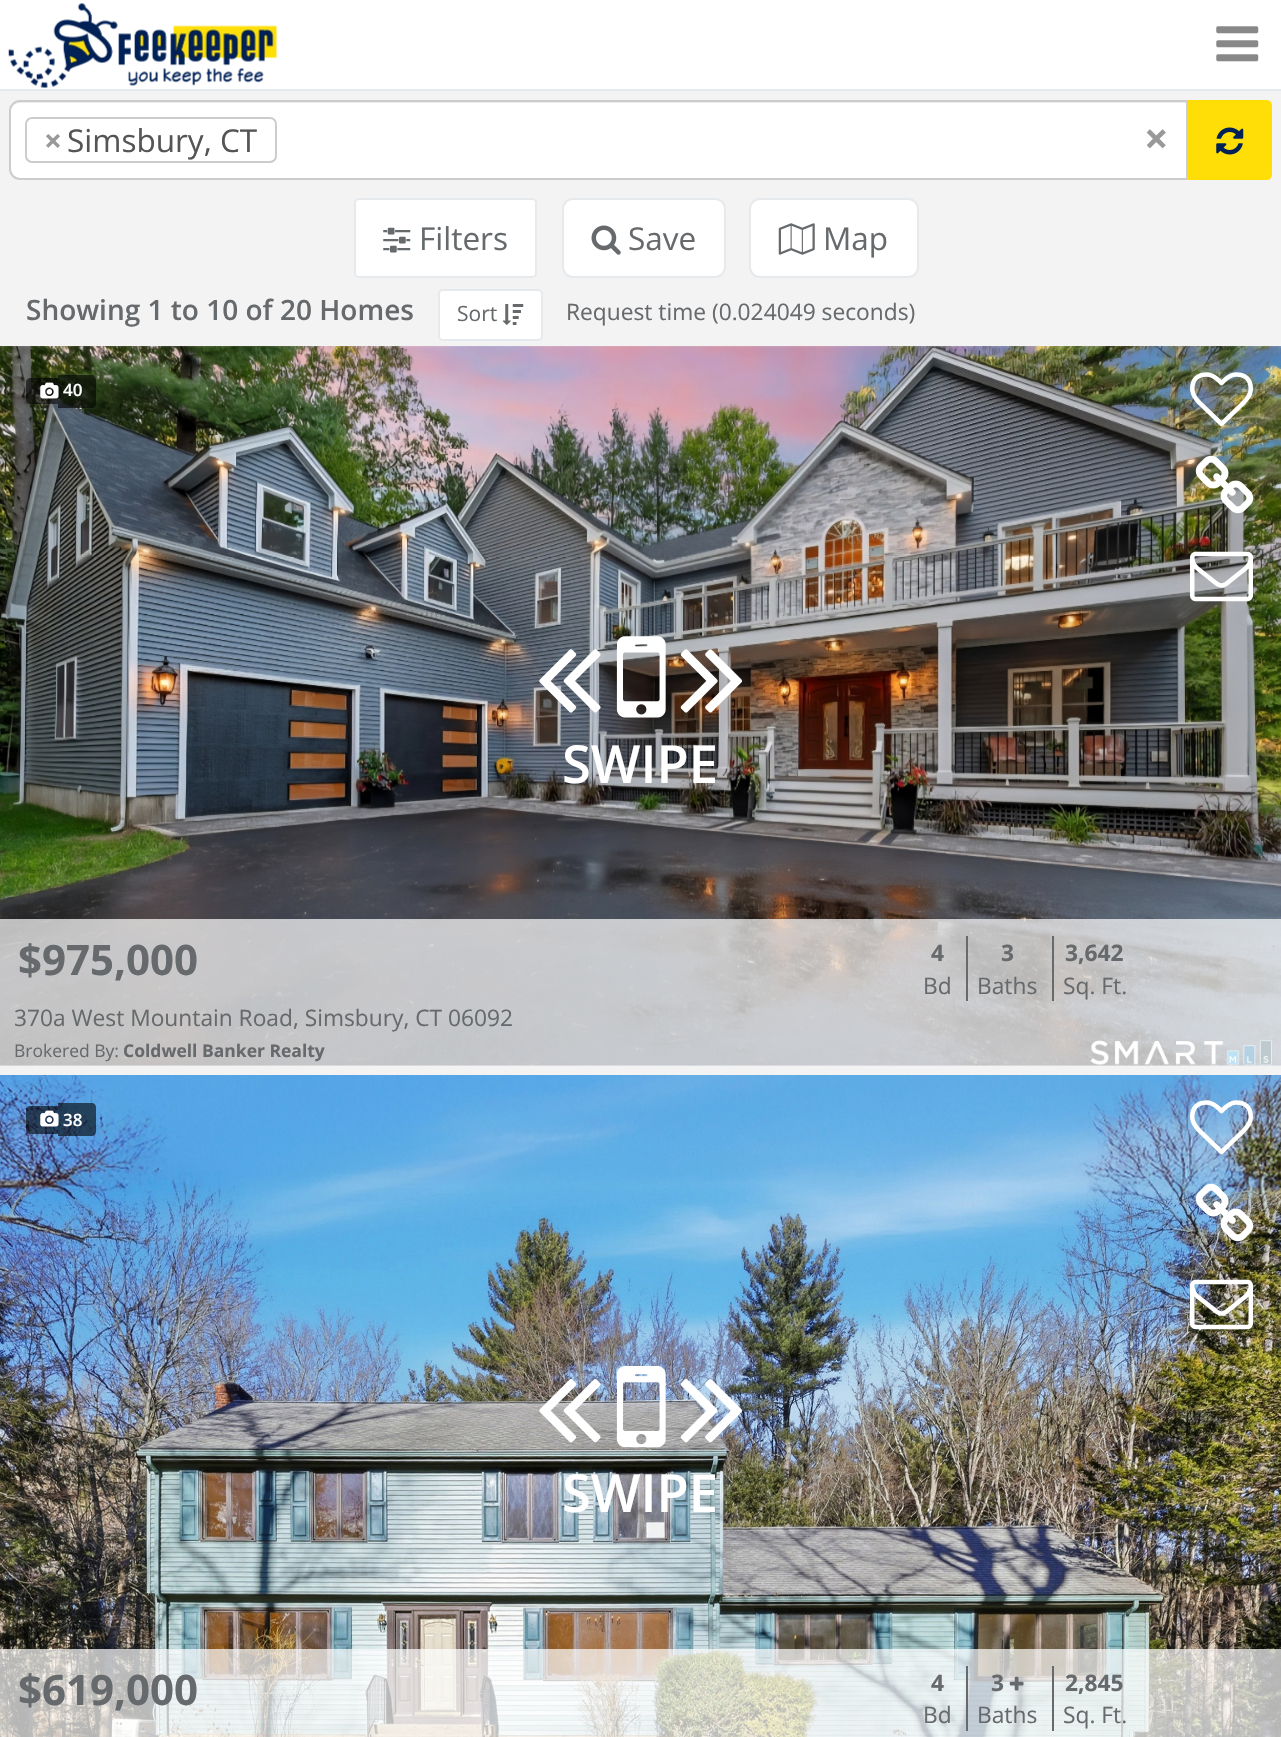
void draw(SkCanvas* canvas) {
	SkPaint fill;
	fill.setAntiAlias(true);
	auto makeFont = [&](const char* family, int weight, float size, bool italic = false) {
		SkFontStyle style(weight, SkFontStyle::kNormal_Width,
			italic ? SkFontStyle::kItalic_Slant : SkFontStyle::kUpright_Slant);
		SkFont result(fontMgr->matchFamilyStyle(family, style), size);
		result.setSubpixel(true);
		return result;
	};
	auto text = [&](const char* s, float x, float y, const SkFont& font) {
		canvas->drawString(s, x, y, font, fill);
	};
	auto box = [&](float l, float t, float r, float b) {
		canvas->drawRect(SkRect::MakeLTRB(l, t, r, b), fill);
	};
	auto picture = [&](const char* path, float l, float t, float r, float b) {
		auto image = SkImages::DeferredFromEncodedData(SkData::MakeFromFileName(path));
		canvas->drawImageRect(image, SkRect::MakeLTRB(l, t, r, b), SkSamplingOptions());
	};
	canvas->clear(0xFFF3F3F4);
	fill.setColor(0xFFE7EAEC);
	box(0, 89, 1281, 91);
	fill.setColor(0xFFFFFFFF);
	box(0, 0, 1281, 89);
	picture("image0.png", 8, 3, 277, 88);
	picture("image1.png", 1216, 26, 1259, 62);
	canvas->drawPath(SkPathBuilder().moveTo(20, 100).lineTo(1188, 100).lineTo(1188, 180).lineTo(20, 180).cubicTo(14, 180, 9, 175, 9, 169).lineTo(9, 111).cubicTo(9, 105, 14, 100, 20, 100).close().detach(), fill);
	fill.setColor(0xFFECECEC);
	canvas->drawPath(SkPathBuilder().moveTo(19, 103).lineTo(1186, 103).lineTo(1186, 179).lineTo(1187, 179).lineTo(1187, 102).lineTo(20, 102).cubicTo(17, 102, 15, 103, 13, 105).cubicTo(15, 104, 17, 103, 19, 103).close().detach(), fill);
	fill.setStyle(SkPaint::kStroke_Style);
	fill.setStrokeWidth(2);
	fill.setColor(0xFFCCCCCC);
	canvas->drawPath(SkPathBuilder().moveTo(20, 101).lineTo(1187, 101).lineTo(1187, 179).lineTo(20, 179).cubicTo(14.5f, 179, 10, 174.5f, 10, 169).lineTo(10, 111).cubicTo(10, 105.5f, 14.5f, 101, 20, 101).close().detach(), fill);
	canvas->drawRoundRect(SkRect::MakeLTRB(26, 118, 276, 162), 6, 6, fill);
	fill.setStyle(SkPaint::kFill_Style);
	fill.setColor(0xFFFFDE08);
	canvas->drawPath(SkPathBuilder().moveTo(1188, 101).lineTo(1267, 101).cubicTo(1269, 101, 1271, 103, 1271, 105).lineTo(1271, 175).cubicTo(1271, 177, 1269, 179, 1267, 179).lineTo(1188, 179).close().detach(), fill);
	fill.setStyle(SkPaint::kStroke_Style);
	canvas->drawPath(SkPathBuilder().moveTo(1188, 101).lineTo(1267, 101).cubicTo(1269, 101, 1271, 103, 1271, 105).lineTo(1271, 175).cubicTo(1271, 177, 1269, 179, 1267, 179).lineTo(1188, 179).close().detach(), fill);
	picture("image2.png", 1216, 127, 1244, 155);
	fill.setStyle(SkPaint::kFill_Style);
	fill.setColor(0xFFFFFFFF);
	canvas->drawRoundRect(SkRect::MakeLTRB(355, 199, 536, 277), 4, 4, fill);
	fill.setStyle(SkPaint::kStroke_Style);
	fill.setColor(0xFFE7EAEC);
	canvas->drawRoundRect(SkRect::MakeLTRB(355, 199, 536, 277), 4, 4, fill);
	picture("image3.png", 383, 227, 411, 253);
	fill.setStyle(SkPaint::kFill_Style);
	fill.setColor(0xFFFFFFFF);
	canvas->drawRoundRect(SkRect::MakeLTRB(563, 199, 725, 277), 10, 10, fill);
	fill.setStyle(SkPaint::kStroke_Style);
	fill.setColor(0xFFE7EAEC);
	canvas->drawRoundRect(SkRect::MakeLTRB(563, 199, 725, 277), 10, 10, fill);
	picture("image4.png", 591, 225, 621, 255);
	fill.setStyle(SkPaint::kFill_Style);
	fill.setColor(0xFFFFFFFF);
	canvas->drawRoundRect(SkRect::MakeLTRB(750, 199, 918, 277), 10, 10, fill);
	fill.setStyle(SkPaint::kStroke_Style);
	fill.setColor(0xFFE7EAEC);
	canvas->drawRoundRect(SkRect::MakeLTRB(750, 199, 918, 277), 10, 10, fill);
	picture("image5.png", 778, 223, 815, 255);
	fill.setStyle(SkPaint::kFill_Style);
	fill.setColor(0xFFFFFFFF);
	canvas->drawRoundRect(SkRect::MakeLTRB(439, 290, 542, 340), 4, 4, fill);
	fill.setStyle(SkPaint::kStroke_Style);
	fill.setColor(0xFFE7EAEC);
	canvas->drawRoundRect(SkRect::MakeLTRB(439, 290, 542, 340), 4, 4, fill);
	picture("image6.png", 502, 304, 524, 325);
	fill.setStyle(SkPaint::kFill_Style);
	fill.setColor(0xFFFFFFFF);
	box(0, 347, 1281, 1066);
	picture("image7.png", 0, 346, 1281, 1066);
	fill.setColor(0x99000000);
	canvas->drawPath(SkPathBuilder().moveTo(30, 378).lineTo(58, 378).lineTo(58, 404).lineTo(30, 404).cubicTo(28, 404, 26, 402, 26, 400).lineTo(26, 382).cubicTo(26, 380, 28, 378, 30, 378).close().detach(), fill);
	box(58, 375, 63, 408);
	canvas->drawPath(SkPathBuilder().moveTo(63, 375).lineTo(92, 375).cubicTo(94, 375, 96, 377, 96, 379).lineTo(96, 404).cubicTo(96, 406, 94, 408, 92, 408).lineTo(63, 408).close().detach(), fill);
	picture("image8.png", 40, 382, 59, 399);
	picture("image9.png", 1190, 372, 1253, 427);
	picture("image10.png", 1195, 455, 1254, 514);
	picture("image11.png", 1190, 551, 1253, 602);
	picture("image12.png", 539, 649, 601, 713);
	picture("image13.png", 616, 636, 666, 718);
	picture("image14.png", 680, 649, 742, 713);
	fill.setColor(0xB3FFFFFF);
	box(0, 919, 1281, 1066);
	fill.setColor(0xFF676A6C);
	box(966, 936, 968, 1001);
	box(1052, 936, 1054, 1001);
	picture("image15.png", 0, 1075, 1281, 1737);
	fill.setColor(0x99000000);
	canvas->drawPath(SkPathBuilder().moveTo(30, 1106).lineTo(58, 1106).lineTo(58, 1134).lineTo(30, 1134).cubicTo(28, 1134, 26, 1132, 26, 1130).lineTo(26, 1110).cubicTo(26, 1108, 28, 1106, 30, 1106).close().detach(), fill);
	box(58, 1103, 63, 1136);
	canvas->drawPath(SkPathBuilder().moveTo(63, 1103).lineTo(92, 1103).cubicTo(94, 1103, 96, 1105, 96, 1107).lineTo(96, 1132).cubicTo(96, 1134, 94, 1136, 92, 1136).lineTo(63, 1136).close().detach(), fill);
	picture("image16.png", 40, 1110, 59, 1127);
	picture("image17.png", 1190, 1100, 1253, 1155);
	picture("image18.png", 1195, 1183, 1254, 1242);
	picture("image19.png", 1190, 1279, 1253, 1330);
	picture("image20.png", 539, 1379, 601, 1443);
	picture("image21.png", 616, 1366, 666, 1448);
	picture("image22.png", 680, 1379, 742, 1443);
	fill.setColor(0xB3FFFFFF);
	box(0, 1649, 1281, 1737);
	fill.setColor(0xFF676A6C);
	box(966, 1666, 968, 1731);
	picture("image23.png", 1009, 1676, 1024, 1691);
	box(1052, 1666, 1054, 1731);
	auto font1 = makeFont("Open Sans", 700, 31.5f);
	fill.setColor(0xFF999999);
	text("×", 44, 152, font1);
	auto font2 = makeFont("Open Sans", 400, 31.5f);
	fill.setColor(0xFF555555);
	text("Simsbury, CT", 67, 152, font2);
	auto font3 = makeFont("Open Sans", 700, 43);
	fill.setColor(0xFF999999);
	text("×", 1144, 154, font3);
	fill.setColor(0xFF676A6C);
	text("Filters", 419, 250, font2);
	text("Save", 628, 250, font2);
	text("Map", 823, 250, font2);
	auto font4 = makeFont("Open Sans", 600, 28);
	text("Showing 1 to 10 of 20 Homes", 26, 320, font4);
	auto font5 = makeFont("Open Sans", 400, 21);
	text("Sort", 457, 321, font5);
	auto font6 = makeFont("Open Sans", 400, 22.75f);
	text("Request time (0.024049 seconds)", 566, 320, font6);
	auto font7 = makeFont("Open Sans", 600, 17);
	fill.setColor(0xFFFFFFFF);
	text("40", 63, 396, font7);
	auto font8 = makeFont("Open Sans", 600, 52.5f);
	text("SWIPE", 562, 783, font8);
	auto font9 = makeFont("Open Sans", 700, 42);
	fill.setColor(0xFF676A6C);
	text("$975,000", 18, 975, font9);
	auto font10 = makeFont("Open Sans", 700, 22.75f);
	text("4", 931, 961, font10);
	text("Bd", 923, 994, font6);
	text("3", 1001, 961, font10);
	text("Baths", 977, 994, font6);
	text("3,642", 1065, 961, font10);
	text("Sq. Ft.", 1063, 994, font6);
	text("370a West Mountain Road, Simsbury, CT 06092", 14, 1026, font6);
	auto font11 = makeFont("Open Sans", 400, 17.5f);
	text("Brokered By:", 14, 1057, font11);
	auto font12 = makeFont("Open Sans", 700, 17.5f);
	text("Coldwell Banker Realty", 123, 1057, font12);
	fill.setColor(0xFFFFFFFF);
	text("38", 63, 1126, font7);
	text("SWIPE", 562, 1512, font8);
	fill.setColor(0xFF676A6C);
	text("$619,000", 18, 1705, font9);
	text("4", 931, 1691, font10);
	text("Bd", 923, 1723, font6);
	text("3", 991, 1691, font10);
	text("Baths", 977, 1723, font6);
	text("2,845", 1065, 1691, font10);
	text("Sq. Ft.", 1063, 1723, font6);
}
